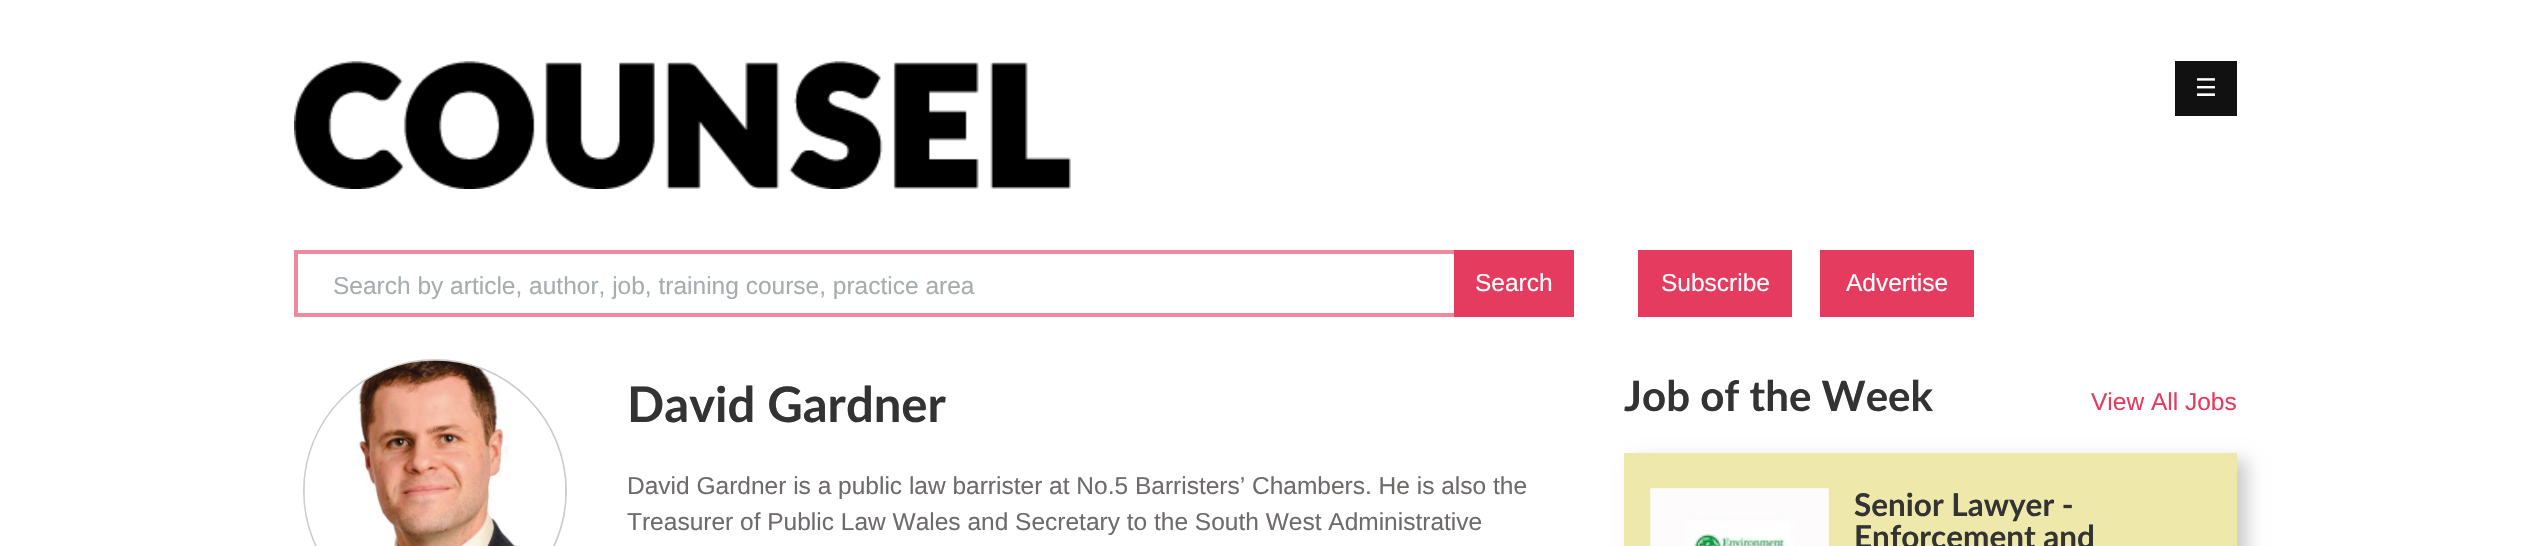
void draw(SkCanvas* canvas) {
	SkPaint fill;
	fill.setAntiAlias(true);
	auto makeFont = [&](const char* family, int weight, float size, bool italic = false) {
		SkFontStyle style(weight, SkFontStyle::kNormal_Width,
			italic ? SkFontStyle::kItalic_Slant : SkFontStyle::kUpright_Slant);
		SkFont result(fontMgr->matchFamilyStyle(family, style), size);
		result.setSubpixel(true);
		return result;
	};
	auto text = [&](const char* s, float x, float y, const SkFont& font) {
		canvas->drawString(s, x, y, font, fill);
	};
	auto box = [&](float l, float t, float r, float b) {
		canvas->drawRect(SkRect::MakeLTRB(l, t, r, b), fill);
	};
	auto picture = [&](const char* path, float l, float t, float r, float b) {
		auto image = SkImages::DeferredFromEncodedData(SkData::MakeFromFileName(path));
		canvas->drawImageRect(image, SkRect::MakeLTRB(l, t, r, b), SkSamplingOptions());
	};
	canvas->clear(0xFFFFFFFF);
	picture("image0.png", 294, 61, 1071, 189);
	fill.setColor(0xFF111111);
	box(2175, 61, 2237, 116);
	fill.setColor(0xFFEF899F);
	box(294, 250, 1454, 254);
	box(294, 313, 1454, 317);
	box(294, 250, 298, 317);
	fill.setColor(0xFFE53B5F);
	box(1454, 250, 1574, 317);
	fill.setStyle(SkPaint::kStroke_Style);
	fill.setStrokeWidth(2);
	fill.setColor(0xFFCCCCCC);
	canvas->drawCircle(435, 491, 131, fill);
	picture("image1.png", 304, 360, 565, 546);
	fill.setStyle(SkPaint::kFill_Style);
	fill.setColor(0xFFE53B5F);
	box(1638, 250, 1792, 317);
	box(1820, 250, 1974, 317);
	fill.setColor(0x33000000);
	fill.setMaskFilter(SkMaskFilter::MakeBlur(kNormal_SkBlurStyle, 8));
	canvas->drawRect(SkRect::MakeLTRB(1635, 460, 2247, 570), fill);
	fill.setMaskFilter(nullptr);
	fill.setColor(0xFFEEE8AA);
	box(1624, 453, 2237, 546);
	picture("image2.png", 1650, 488, 1829, 546);
	auto font1 = makeFont("DejaVu Sans", 400, 24.5f);
	fill.setColor(0xFFFFFFFF);
	text("☰", 2195, 96, font1);
	canvas->save();
	canvas->clipRect(SkRect::MakeLTRB(333, 271, 1433, 299));
	auto font2 = makeFont("Liberation Sans", 400, 24.5f);
	fill.setColor(0xFFA7ACB1);
	text("Search by article, author, job, training course, practice area", 333, 294, font2);
	canvas->restore();
	fill.setColor(0xFFFFFFFF);
	text("Search", 1475, 291, font2);
	auto font3 = makeFont("Lato", 700, 49);
	fill.setColor(0xFF333333);
	text("David Gardner", 627, 422, font3);
	fill.setColor(0xFF6F6B6B);
	text("David Gardner is a public law barrister at No.5 Barristers’ Chambers. He is also the", 627, 494, font2);
	text("Treasurer of Public Law Wales and Secretary to the South West Administrative", 627, 530, font2);
	fill.setColor(0xFFFFFFFF);
	text("Subscribe", 1661, 291, font2);
	text("Advertise", 1846, 291, font2);
	auto font4 = makeFont("Lato", 700, 42);
	fill.setColor(0xFF333333);
	text("Job of the Week", 1624, 411, font4);
	fill.setColor(0xFFE53B5F);
	text("View All Jobs", 2091, 410, font2);
	auto font5 = makeFont("Lato", 700, 31.5f);
	fill.setColor(0xFF333333);
	text("Senior Lawyer -", 1854, 516, font5);
	text("Enforcement and", 1854, 548, font5);
}
